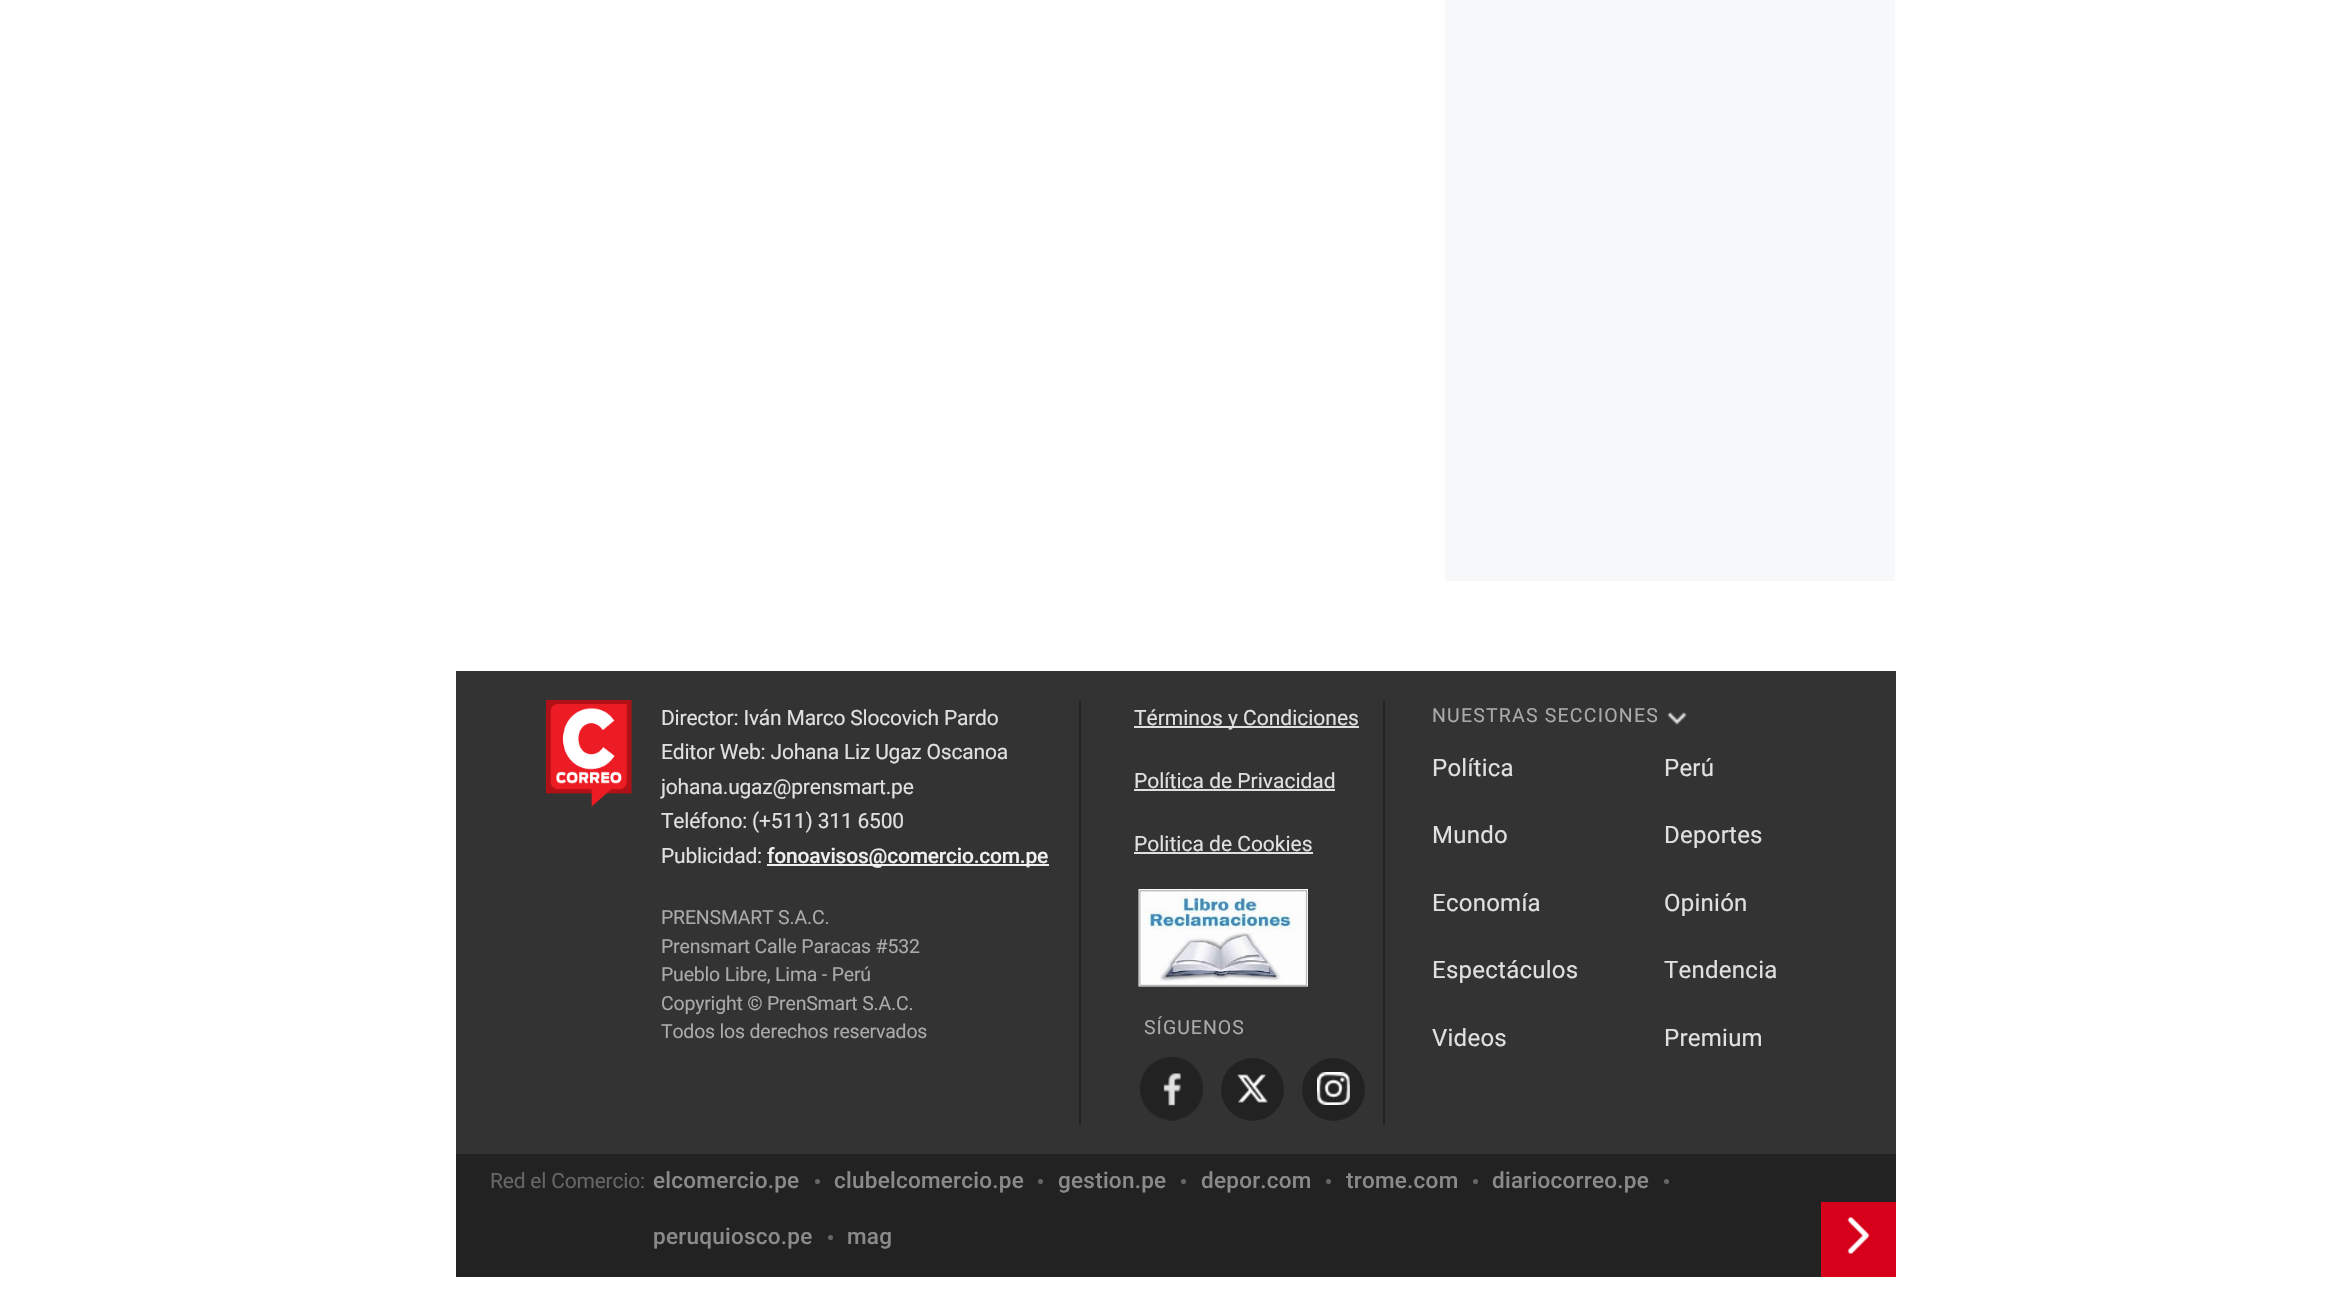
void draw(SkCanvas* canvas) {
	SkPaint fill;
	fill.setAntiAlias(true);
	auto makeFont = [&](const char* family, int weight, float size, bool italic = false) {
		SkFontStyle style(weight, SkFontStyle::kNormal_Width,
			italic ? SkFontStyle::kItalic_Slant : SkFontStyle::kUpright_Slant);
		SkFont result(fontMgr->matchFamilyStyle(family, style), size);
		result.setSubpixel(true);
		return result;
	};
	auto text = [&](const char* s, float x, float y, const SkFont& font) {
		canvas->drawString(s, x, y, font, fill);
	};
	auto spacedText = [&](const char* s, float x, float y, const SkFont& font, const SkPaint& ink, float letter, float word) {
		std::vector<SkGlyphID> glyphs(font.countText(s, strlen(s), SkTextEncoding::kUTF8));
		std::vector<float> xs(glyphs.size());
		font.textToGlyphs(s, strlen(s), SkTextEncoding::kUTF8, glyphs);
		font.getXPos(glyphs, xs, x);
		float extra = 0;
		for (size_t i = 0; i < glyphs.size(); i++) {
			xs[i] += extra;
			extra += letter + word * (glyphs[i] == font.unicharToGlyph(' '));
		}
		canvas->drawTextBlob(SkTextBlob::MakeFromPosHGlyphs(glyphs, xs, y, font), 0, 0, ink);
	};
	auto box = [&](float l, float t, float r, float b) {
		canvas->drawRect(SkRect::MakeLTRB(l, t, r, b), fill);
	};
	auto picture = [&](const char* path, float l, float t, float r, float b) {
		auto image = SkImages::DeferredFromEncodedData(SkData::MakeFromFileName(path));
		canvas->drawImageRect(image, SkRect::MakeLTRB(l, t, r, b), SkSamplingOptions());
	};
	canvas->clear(0xFFFFFFFF);
	fill.setColor(0xFFF7F8F9);
	box(1445, 0, 1895, 581);
	fill.setColor(0xFF333333);
	box(456, 671, 1896, 1154);
	picture("image0.png", 546, 700, 632, 807);
	fill.setColor(0xFFF0F0F0);
	box(767, 864, 1049, 866);
	fill.setColor(0xFF222222);
	box(1383, 701, 1385, 1124);
	box(1079, 701, 1081, 1124);
	fill.setColor(0xFFE0E0E0);
	box(1134, 726, 1359, 728);
	box(1134, 789, 1335, 791);
	box(1134, 852, 1313, 854);
	picture("image1.png", 1138, 889, 1308, 987);
	fill.setColor(0xFF222222);
	canvas->drawCircle(1171.5f, 1089.5f, 31.5f, fill);
	picture("image2.png", 1140, 1057, 1203, 1120);
	canvas->drawCircle(1252.5f, 1089.5f, 31.5f, fill);
	picture("image3.png", 1237, 1074, 1268, 1103);
	canvas->drawCircle(1333.5f, 1089.5f, 31.5f, fill);
	picture("image4.png", 1317, 1072, 1350, 1105);
	picture("image5.png", 1667, 712, 1687, 725);
	box(456, 1154, 1896, 1277);
	fill.setColor(0xFF666666);
	canvas->drawCircle(817.5f, 1181.5f, 2.5f, fill);
	canvas->drawCircle(1040.5f, 1181.5f, 2.5f, fill);
	canvas->drawCircle(1183.5f, 1181.5f, 2.5f, fill);
	canvas->drawCircle(1328.5f, 1181.5f, 2.5f, fill);
	canvas->drawCircle(1475.5f, 1181.5f, 2.5f, fill);
	canvas->drawCircle(1666.5f, 1181.5f, 2.5f, fill);
	canvas->drawCircle(830.5f, 1237.5f, 2.5f, fill);
	fill.setColor(0xFFD6001A);
	box(1821, 1202, 1896, 1277);
	picture("image6.png", 1847, 1217, 1870, 1254);
	auto font1 = makeFont("Roboto", 400, 21);
	fill.setColor(0xFFE0E0E0);
	spacedText("Director: Iván Marco Slocovich Pardo", 661, 725, font1, fill, -0.2f, 0);
	spacedText("Editor Web: Johana Liz Ugaz Oscanoa", 661, 759, font1, fill, -0.2f, 0);
	spacedText("johana.ugaz@prensmart.pe", 661, 794, font1, fill, -0.2f, 0);
	spacedText("Teléfono: (+511) 311 6500", 661, 828, font1, fill, -0.2f, 0);
	spacedText("Publicidad:", 661, 863, font1, fill, -0.2f, 0);
	auto font2 = makeFont("Roboto", 500, 21);
	fill.setColor(0xFFF0F0F0);
	spacedText("fonoavisos@comercio.com.pe", 767, 863, font2, fill, -0.2f, 0);
	auto font3 = makeFont("Roboto", 400, 19.5f);
	fill.setColor(0xFFAAAAAA);
	spacedText("PRENSMART S.A.C.", 661, 924, font3, fill, -0.2f, 0);
	spacedText("Prensmart Calle Paracas #532", 661, 953, font3, fill, -0.2f, 0);
	spacedText("Pueblo Libre, Lima - Perú", 661, 981, font3, fill, -0.2f, 0);
	spacedText("Copyright © PrenSmart S.A.C.", 661, 1010, font3, fill, -0.2f, 0);
	spacedText("Todos los derechos reservados", 661, 1038, font3, fill, -0.2f, 0);
	fill.setColor(0xFFE0E0E0);
	text("Términos y Condiciones", 1134, 725, font1);
	text("Política de Privacidad", 1134, 788, font1);
	text("Politica de Cookies", 1134, 851, font1);
	fill.setColor(0xFFAAAAAA);
	spacedText("SÍGUENOS", 1144, 1034, font3, fill, 1, 0);
	spacedText("NUESTRAS SECCIONES", 1432, 722, font3, fill, 1.2f, 0);
	auto font4 = makeFont("Roboto", 400, 24);
	fill.setColor(0xFFE0E0E0);
	spacedText("Política", 1432, 776, font4, fill, 0.25f, 0);
	spacedText("Perú", 1664, 776, font4, fill, 0.25f, 0);
	spacedText("Mundo", 1432, 843, font4, fill, 0.25f, 0);
	spacedText("Deportes", 1664, 843, font4, fill, 0.25f, 0);
	spacedText("Economía", 1432, 911, font4, fill, 0.25f, 0);
	spacedText("Opinión", 1664, 911, font4, fill, 0.25f, 0);
	spacedText("Espectáculos", 1432, 978, font4, fill, 0.25f, 0);
	spacedText("Tendencia", 1664, 978, font4, fill, 0.25f, 0);
	spacedText("Videos", 1432, 1046, font4, fill, 0.25f, 0);
	spacedText("Premium", 1664, 1046, font4, fill, 0.25f, 0);
	fill.setColor(0xFF666666);
	spacedText("Red el Comercio:", 490, 1188, font1, fill, -0.2f, 0);
	auto font5 = makeFont("Roboto", 500, 22.5f);
	fill.setColor(0xFF8A8A8A);
	spacedText("elcomercio.pe", 653, 1188, font5, fill, 0.25f, 0);
	spacedText("clubelcomercio.pe", 834, 1188, font5, fill, 0.25f, 0);
	spacedText("gestion.pe", 1058, 1188, font5, fill, 0.25f, 0);
	spacedText("depor.com", 1201, 1188, font5, fill, 0.25f, 0);
	spacedText("trome.com", 1346, 1188, font5, fill, 0.25f, 0);
	spacedText("diariocorreo.pe", 1492, 1188, font5, fill, 0.25f, 0);
	spacedText("peruquiosco.pe", 653, 1244, font5, fill, 0.25f, 0);
	spacedText("mag", 847, 1244, font5, fill, 0.25f, 0);
}
